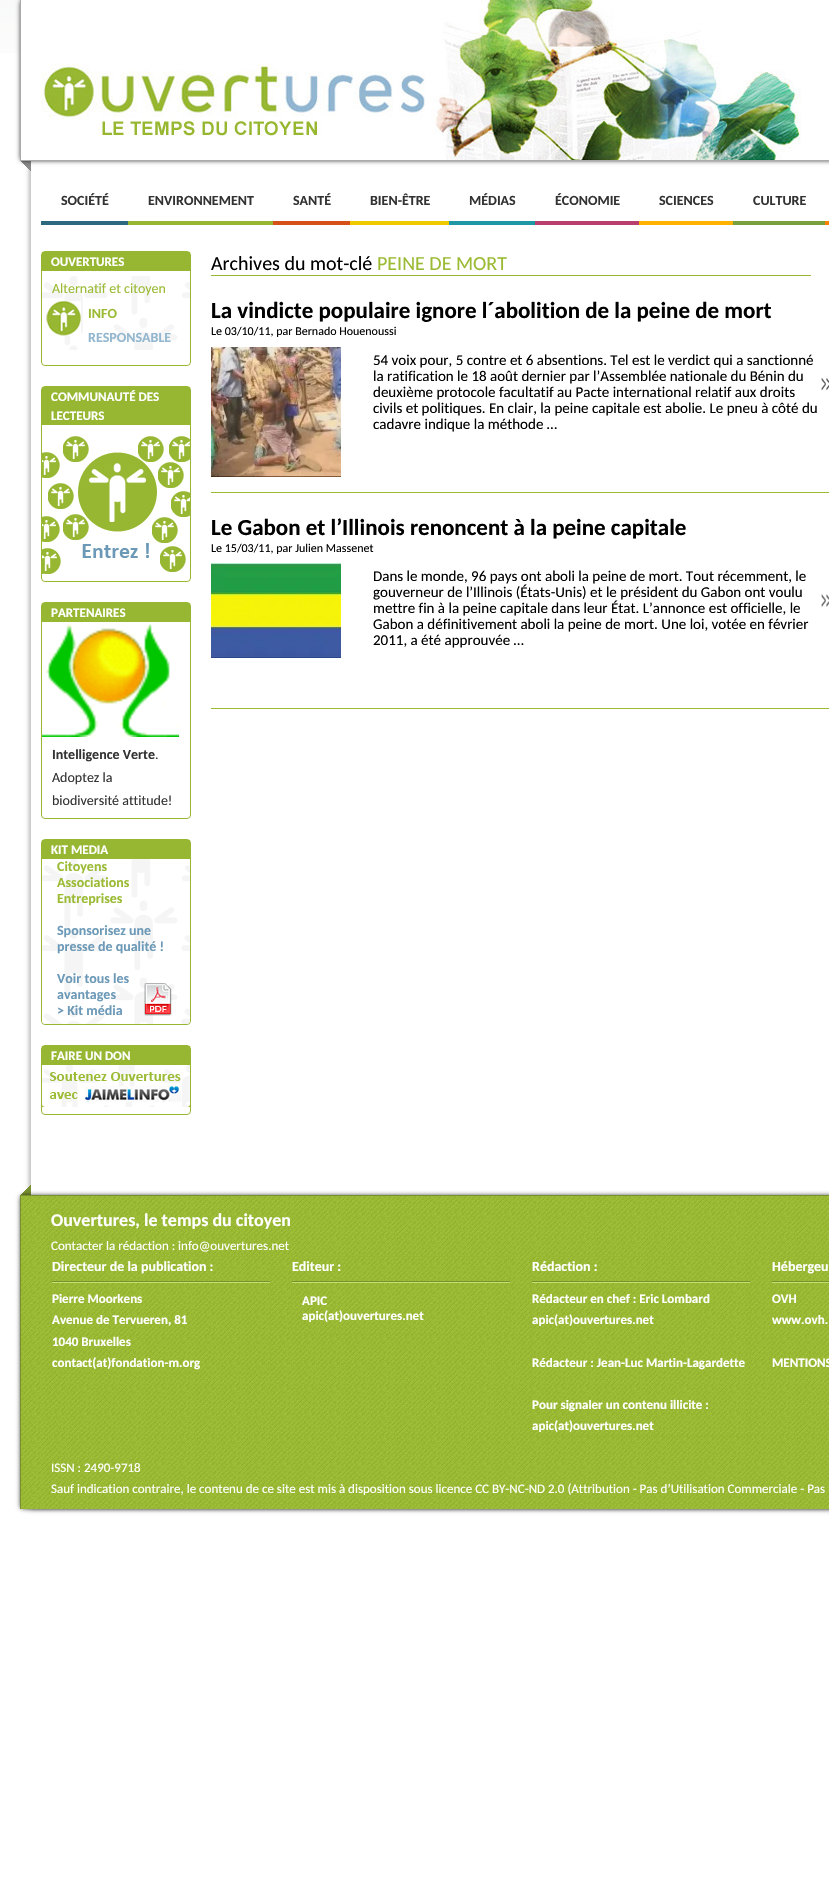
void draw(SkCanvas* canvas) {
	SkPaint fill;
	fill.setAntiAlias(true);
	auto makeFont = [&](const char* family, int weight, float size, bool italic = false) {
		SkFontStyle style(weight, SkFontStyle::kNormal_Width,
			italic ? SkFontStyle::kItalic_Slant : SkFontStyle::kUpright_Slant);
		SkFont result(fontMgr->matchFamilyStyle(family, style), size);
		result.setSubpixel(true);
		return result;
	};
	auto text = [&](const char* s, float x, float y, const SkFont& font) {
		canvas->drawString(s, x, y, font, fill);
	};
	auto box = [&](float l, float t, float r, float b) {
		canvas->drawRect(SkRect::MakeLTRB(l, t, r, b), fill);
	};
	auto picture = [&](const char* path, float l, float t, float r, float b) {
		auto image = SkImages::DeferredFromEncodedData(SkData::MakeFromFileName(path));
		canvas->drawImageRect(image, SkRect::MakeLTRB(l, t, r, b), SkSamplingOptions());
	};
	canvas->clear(0xFFFFFFFF);
	picture("image0.png", 0, 0, 20, 53);
	fill.setColor(0xFF999999);
	fill.setMaskFilter(SkMaskFilter::MakeBlur(kNormal_SkBlurStyle, 2.5f));
	canvas->drawRect(SkRect::MakeLTRB(30, 0, 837, 1509), fill);
	fill.setMaskFilter(nullptr);
	fill.setColor(0xFFFFFFFF);
	box(31, 161, 829, 1195);
	fill.setColor(0xFFCCCCCC);
	box(30, 171, 31, 1185);
	picture("image2.png", 21, 161, 31, 171);
	fill.setColor(0xFF000000);
	fill.setMaskFilter(SkMaskFilter::MakeBlur(kNormal_SkBlurStyle, 2.5f));
	canvas->drawRect(SkRect::MakeLTRB(21, 1, 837, 160), fill);
	fill.setMaskFilter(nullptr);
	fill.setColor(0xFFFFFFFF);
	box(21, 0, 829, 160);
	fill.setColor(0xFFAAAAAA);
	box(20, 160, 829, 161);
	box(20, 0, 21, 161);
	picture("image1.png", 41, 0, 801, 160);
	fill.setColor(0xFF2C697F);
	box(41, 221, 128, 225);
	fill.setColor(0xFF97B732);
	box(128, 221, 273, 225);
	fill.setColor(0xFFD55119);
	box(273, 221, 350, 225);
	fill.setColor(0xFFEFCA00);
	box(350, 221, 449, 225);
	fill.setColor(0xFF1F97A5);
	box(449, 221, 535, 225);
	fill.setColor(0xFFB73E6D);
	box(535, 221, 639, 225);
	fill.setColor(0xFFFFB200);
	box(639, 221, 733, 225);
	fill.setColor(0xFF78A03E);
	box(733, 221, 825, 225);
	fill.setColor(0xFFFF7F00);
	box(825, 221, 829, 225);
	fill.setStyle(SkPaint::kStroke_Style);
	fill.setStrokeWidth(1);
	fill.setColor(0xFF97B732);
	canvas->drawRoundRect(SkRect::MakeLTRB(41.5f, 251.5f, 190.5f, 365.5f), 3.5f, 3.5f, fill);
	fill.setStyle(SkPaint::kFill_Style);
	box(42, 252, 190, 271);
	picture("image3.png", 42, 276, 190, 350);
	picture("image4.png", 46, 301, 81, 336);
	fill.setStyle(SkPaint::kStroke_Style);
	canvas->drawRoundRect(SkRect::MakeLTRB(41.5f, 386.5f, 190.5f, 581.5f), 3.5f, 3.5f, fill);
	fill.setStyle(SkPaint::kFill_Style);
	box(42, 387, 190, 425);
	picture("image5.png", 42, 433, 190, 574);
	fill.setStyle(SkPaint::kStroke_Style);
	canvas->drawRoundRect(SkRect::MakeLTRB(41.5f, 602.5f, 190.5f, 818.5f), 3.5f, 3.5f, fill);
	fill.setStyle(SkPaint::kFill_Style);
	box(42, 603, 190, 622);
	picture("image6.png", 42, 624, 179, 737);
	fill.setStyle(SkPaint::kStroke_Style);
	canvas->drawRoundRect(SkRect::MakeLTRB(41.5f, 839.5f, 190.5f, 1024.5f), 3.5f, 3.5f, fill);
	fill.setStyle(SkPaint::kFill_Style);
	box(42, 840, 190, 859);
	picture("image7.png", 42, 859, 190, 1024);
	picture("image8.png", 144, 983, 172, 1016);
	fill.setStyle(SkPaint::kStroke_Style);
	canvas->drawRoundRect(SkRect::MakeLTRB(41.5f, 1045.5f, 190.5f, 1114.5f), 3.5f, 3.5f, fill);
	fill.setStyle(SkPaint::kFill_Style);
	box(42, 1046, 190, 1065);
	picture("image9.png", 42, 1065, 190, 1107);
	box(211, 275, 811, 276);
	fill.setColor(0xFF9BBB34);
	box(211, 492, 829, 493);
	picture("image10.png", 821, 378, 829, 391);
	picture("image11.png", 211, 347, 341, 477);
	box(211, 708, 829, 709);
	picture("image12.png", 821, 594, 829, 607);
	picture("image13.png", 211, 563, 341, 658);
	picture("image14.png", 21, 1185, 31, 1195);
	fill.setColor(0xFF000000);
	fill.setMaskFilter(SkMaskFilter::MakeBlur(kNormal_SkBlurStyle, 2.5f));
	canvas->drawRect(SkRect::MakeLTRB(21, 1196, 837, 1508), fill);
	fill.setMaskFilter(nullptr);
	picture("image15.png", 21, 1196, 829, 1509);
	fill.setColor(0xFF799030);
	box(20, 1195, 829, 1196);
	box(20, 1195, 21, 1509);
	fill.setStyle(SkPaint::kStroke_Style);
	fill.setColor(0xFF97B732);
	canvas->drawRoundRect(SkRect::MakeLTRB(51.5f, 1256.5f, 270.5f, 1373.5f), 3.5f, 3.5f, fill);
	fill.setStyle(SkPaint::kFill_Style);
	fill.setColor(0xFF799030);
	box(52, 1281, 270, 1282);
	fill.setColor(0xFFC5E16D);
	box(52, 1282, 270, 1283);
	fill.setStyle(SkPaint::kStroke_Style);
	fill.setColor(0xFF97B732);
	canvas->drawRoundRect(SkRect::MakeLTRB(291.5f, 1256.5f, 510.5f, 1333.5f), 3.5f, 3.5f, fill);
	fill.setStyle(SkPaint::kFill_Style);
	fill.setColor(0xFF799030);
	box(292, 1281, 510, 1282);
	fill.setColor(0xFFC5E16D);
	box(292, 1282, 510, 1283);
	fill.setStyle(SkPaint::kStroke_Style);
	fill.setColor(0xFF97B732);
	canvas->drawRoundRect(SkRect::MakeLTRB(531.5f, 1256.5f, 750.5f, 1436.5f), 3.5f, 3.5f, fill);
	fill.setStyle(SkPaint::kFill_Style);
	fill.setColor(0xFF799030);
	box(532, 1281, 750, 1282);
	fill.setColor(0xFFC5E16D);
	box(532, 1282, 750, 1283);
	fill.setStyle(SkPaint::kStroke_Style);
	fill.setColor(0xFF97B732);
	canvas->drawRoundRect(SkRect::MakeLTRB(771.5f, 1256.5f, 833.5f, 1373.5f), 3.5f, 3.5f, fill);
	fill.setStyle(SkPaint::kFill_Style);
	fill.setColor(0xFF799030);
	box(772, 1281, 829, 1282);
	fill.setColor(0xFFC5E16D);
	box(772, 1282, 829, 1283);
	auto font1 = makeFont("Carlito", 700, 14);
	fill.setColor(0xFF333333);
	text("SOCIÉTÉ", 61, 205, font1);
	text("ENVIRONNEMENT", 148, 205, font1);
	text("SANTÉ", 293, 205, font1);
	text("BIEN-ÊTRE", 370, 205, font1);
	text("MÉDIAS", 469, 205, font1);
	text("ÉCONOMIE", 555, 205, font1);
	text("SCIENCES", 659, 205, font1);
	text("CULTURE", 753, 205, font1);
	auto font2 = makeFont("Carlito", 700, 13);
	fill.setColor(0xFFFFFFFF);
	text("OUVERTURES", 51, 266, font2);
	auto font3 = makeFont("Carlito", 400, 14);
	fill.setColor(0xFF9BBB34);
	text("Alternatif et citoyen", 52, 293, font3);
	text("INFO", 88, 318, font1);
	fill.setColor(0xFF93B7CF);
	text("RESPONSABLE", 88, 342, font1);
	fill.setColor(0xFFFFFFFF);
	text("COMMUNAUTÉ DES", 51, 401, font2);
	text("LECTEURS", 51, 420, font2);
	text("PARTENAIRES", 51, 617, font2);
	fill.setColor(0xFF333333);
	text("Intelligence Verte", 52, 759, font1);
	text(".", 155, 759, font3);
	text("Adoptez la", 52, 782, font3);
	text("biodiversité attitude!", 52, 805, font3);
	fill.setColor(0xFFFFFFFF);
	text("KIT MEDIA", 51, 854, font2);
	fill.setColor(0xFF9BBB34);
	text("Citoyens", 57, 871, font1);
	text("Associations", 57, 887, font1);
	text("Entreprises", 57, 903, font1);
	fill.setColor(0xFF6C99B7);
	text("Sponsorisez une", 57, 935, font1);
	text("presse de qualité !", 57, 951, font1);
	text("Voir tous les", 57, 983, font1);
	text("avantages", 57, 999, font1);
	text("> Kit média", 57, 1015, font1);
	fill.setColor(0xFFFFFFFF);
	text("FAIRE UN DON", 51, 1060, font2);
	auto font4 = makeFont("Carlito", 400, 20);
	fill.setColor(0xFF000000);
	text("Archives du mot-clé", 211, 270, font4);
	fill.setColor(0xFF9BBB34);
	text("PEINE DE MORT", 377, 270, font4);
	auto font5 = makeFont("Carlito", 700, 23);
	fill.setColor(0xFF000000);
	text("La vindicte populaire ignore l´abolition de la peine de mort", 211, 318, font5);
	auto font6 = makeFont("Carlito", 400, 12);
	text("Le 03/10/11, par Bernado Houenoussi", 211, 335, font6);
	auto font7 = makeFont("Carlito", 400, 15);
	text("54 voix pour, 5 contre et 6 absentions. Tel est le verdict qui a sanctionné", 373, 365, font7);
	text("la ratification le 18 août dernier par l’Assemblée nationale du Bénin du", 373, 381, font7);
	text("deuxième protocole facultatif au Pacte international relatif aux droits", 373, 397, font7);
	text("civils et politiques. En clair, la peine capitale est abolie. Le pneu à côté du", 373, 413, font7);
	text("cadavre indique la méthode …", 373, 429, font7);
	text("Le Gabon et l’Illinois renoncent à la peine capitale", 211, 535, font5);
	text("Le 15/03/11, par Julien Massenet", 211, 552, font6);
	text("Dans le monde, 96 pays ont aboli la peine de mort. Tout récemment, le", 373, 581, font7);
	text("gouverneur de l’Illinois (États-Unis) et le président du Gabon ont voulu", 373, 597, font7);
	text("mettre fin à la peine capitale dans leur État. L’annonce est officielle, le", 373, 613, font7);
	text("Gabon a définitivement aboli la peine de mort. Une loi, votée en février", 373, 629, font7);
	text("2011, a été approuvée …", 373, 645, font7);
	auto font8 = makeFont("Carlito", 700, 18);
	fill.setColor(0xFFFFFFFF);
	text("Ouvertures, le temps du citoyen", 51, 1226, font8);
	auto font9 = makeFont("Carlito", 400, 13);
	text("Contacter la rédaction : info@ouvertures.net", 51, 1250, font9);
	text("Directeur de la publication :", 52, 1271, font1);
	text("Pierre Moorkens", 52, 1303, font2);
	text("Avenue de Tervueren, 81", 52, 1324, font2);
	text("1040 Bruxelles", 52, 1346, font2);
	text("contact(at)fondation-m.org", 52, 1367, font2);
	text("Editeur :", 292, 1271, font1);
	text("APIC", 302, 1305, font2);
	text("apic(at)ouvertures.net", 302, 1320, font2);
	text("Rédaction :", 532, 1271, font1);
	text("Rédacteur en chef : Eric Lombard", 532, 1303, font2);
	text("apic(at)ouvertures.net", 532, 1324, font2);
	text("Rédacteur : Jean-Luc Martin-Lagardette", 532, 1367, font2);
	text("Pour signaler un contenu illicite :", 532, 1409, font2);
	text("apic(at)ouvertures.net", 532, 1430, font2);
	text("Hébergeu", 772, 1271, font1);
	text("OVH", 772, 1303, font2);
	text("www.ovh.", 772, 1324, font2);
	text("MENTIONS", 772, 1367, font2);
	text("ISSN : 2490-9718", 51, 1472, font9);
	text("Sauf indication contraire, le contenu de ce site est mis à disposition sous licence CC BY-NC-ND 2.0 (Attribution - Pas d’Utilisation Commerciale - Pas", 51, 1493, font9);
}
